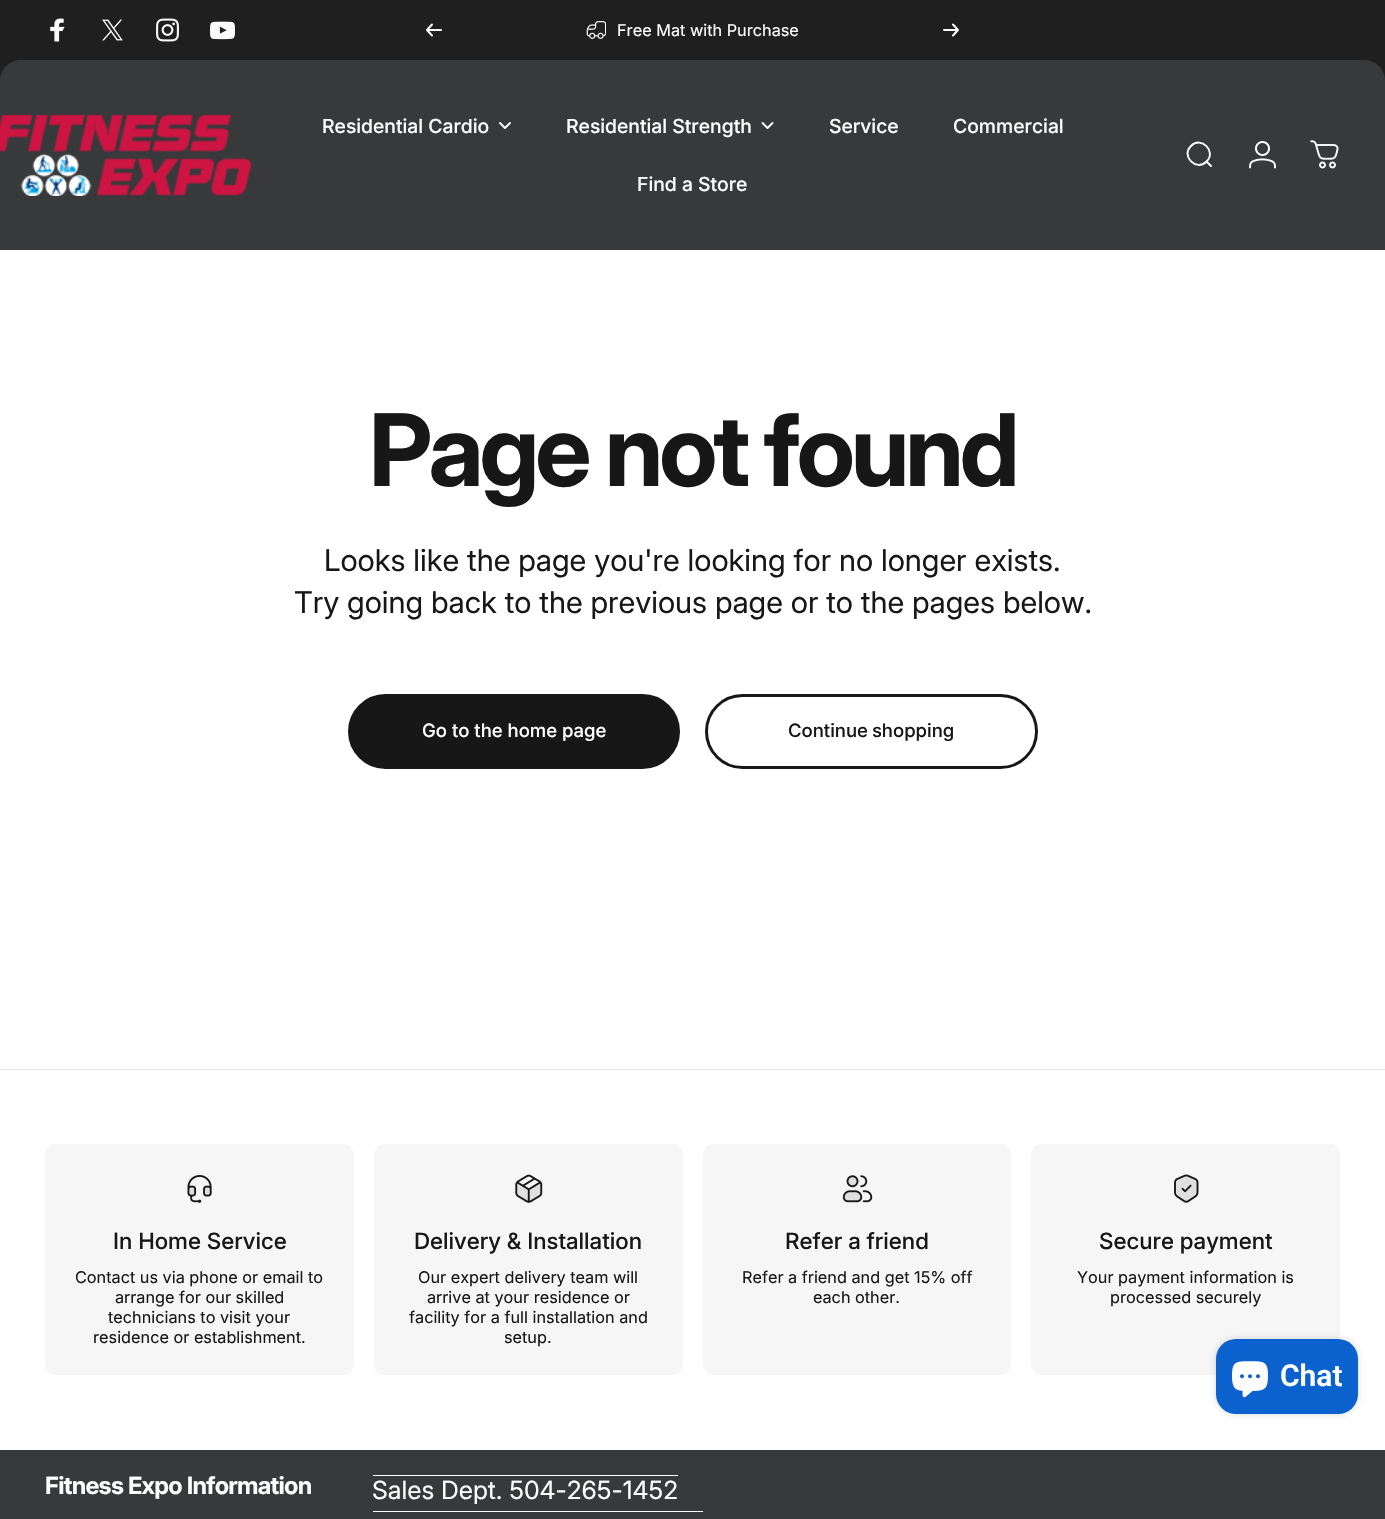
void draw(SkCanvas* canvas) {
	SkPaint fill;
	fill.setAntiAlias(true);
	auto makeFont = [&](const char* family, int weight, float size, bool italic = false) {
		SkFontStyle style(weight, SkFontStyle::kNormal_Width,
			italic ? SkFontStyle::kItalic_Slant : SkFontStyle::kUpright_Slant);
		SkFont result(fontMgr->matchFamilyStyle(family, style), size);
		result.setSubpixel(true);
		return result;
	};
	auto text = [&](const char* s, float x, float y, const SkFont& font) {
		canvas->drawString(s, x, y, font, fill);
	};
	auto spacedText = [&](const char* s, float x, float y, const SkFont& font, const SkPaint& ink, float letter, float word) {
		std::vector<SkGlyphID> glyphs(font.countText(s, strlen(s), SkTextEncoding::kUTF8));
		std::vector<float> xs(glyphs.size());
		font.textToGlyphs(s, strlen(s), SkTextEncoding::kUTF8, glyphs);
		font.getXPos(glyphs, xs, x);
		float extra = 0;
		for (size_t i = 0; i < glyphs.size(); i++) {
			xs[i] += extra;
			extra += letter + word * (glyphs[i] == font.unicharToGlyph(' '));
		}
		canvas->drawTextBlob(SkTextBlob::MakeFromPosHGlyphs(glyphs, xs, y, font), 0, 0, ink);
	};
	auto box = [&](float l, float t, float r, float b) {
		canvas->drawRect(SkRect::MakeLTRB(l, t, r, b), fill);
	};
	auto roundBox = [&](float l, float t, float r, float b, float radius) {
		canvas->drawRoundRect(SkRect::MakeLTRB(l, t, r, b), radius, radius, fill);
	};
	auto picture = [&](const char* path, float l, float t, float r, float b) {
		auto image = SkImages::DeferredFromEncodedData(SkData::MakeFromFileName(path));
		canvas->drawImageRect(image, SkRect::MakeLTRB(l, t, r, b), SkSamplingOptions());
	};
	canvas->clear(0xFFFFFFFF);
	fill.setColor(0xFF1F1F1F);
	box(0, 0, 1385, 21);
	canvas->drawPath(SkPathBuilder().moveTo(21, 0).lineTo(1364, 0).cubicTo(1375.5f, 0, 1385, 9.5f, 1385, 21).lineTo(1385, 81).lineTo(0, 81).lineTo(0, 21).cubicTo(0, 9.5f, 9.5f, 0, 21, 0).close().detach(), fill);
	picture("image0.png", 50, 18, 65, 42);
	picture("image1.png", 102, 19, 123, 41);
	picture("image2.png", 156, 18, 179, 42);
	picture("image3.png", 210, 21, 235, 40);
	fill.setStyle(SkPaint::kStroke_Style);
	fill.setStrokeWidth(2);
	fill.setStrokeCap(SkPaint::kRound_Cap);
	fill.setStrokeJoin(SkPaint::kRound_Join);
	fill.setColor(0xFFFAFAFA);
	canvas->drawPath(SkPathBuilder().moveTo(432, 24.5f).lineTo(427, 30).moveTo(427, 30).lineTo(432, 35.5f).moveTo(427, 30).lineTo(441, 30).detach(), fill);
	picture("image4.png", 586, 21, 606, 39);
	canvas->drawPath(SkPathBuilder().moveTo(944, 30).lineTo(958, 30).moveTo(958, 30).lineTo(953, 24.5f).moveTo(958, 30).lineTo(953, 35.5f).detach(), fill);
	fill.setStyle(SkPaint::kFill_Style);
	fill.setColor(0xFF37393B);
	canvas->drawPath(SkPathBuilder().moveTo(21, 60).lineTo(1364, 60).cubicTo(1375.5f, 60, 1385, 69.5f, 1385, 81).lineTo(1385, 250).lineTo(0, 250).lineTo(0, 81).cubicTo(0, 69.5f, 9.5f, 60, 21, 60).close().detach(), fill);
	picture("image5.png", 0, 114, 251, 196);
	fill.setStyle(SkPaint::kStroke_Style);
	fill.setStrokeWidth(1.9f);
	fill.setColor(0xFFFFFFFF);
	canvas->drawPath(SkPathBuilder().moveTo(500, 123).lineTo(505, 128).lineTo(510, 123).detach(), fill);
	canvas->drawPath(SkPathBuilder().moveTo(762.5f, 123).lineTo(767.5f, 128).lineTo(772.5f, 123).detach(), fill);
	fill.setStrokeJoin(SkPaint::kMiter_Join);
	canvas->drawPath(SkPathBuilder().moveTo(1211, 166).lineTo(1206.5f, 161.5f).moveTo(1206.5f, 161.5f).cubicTo(1217, 151.5f, 1201, 135.5f, 1191, 146).cubicTo(1180.5f, 156, 1196.5f, 172, 1206.5f, 161.5f).close().detach(), fill);
	picture("image6.png", 1249, 141, 1276, 169);
	picture("image7.png", 1310, 140, 1339, 169);
	fill.setStyle(SkPaint::kFill_Style);
	fill.setColor(0xFF171717);
	canvas->drawRoundRect(SkRect::MakeLTRB(349.5f, 695.5f, 678.5f, 767.5f), 36, 36, fill);
	fill.setStyle(SkPaint::kStroke_Style);
	fill.setStrokeWidth(3);
	fill.setStrokeCap(SkPaint::kButt_Cap);
	canvas->drawRoundRect(SkRect::MakeLTRB(349.5f, 695.5f, 678.5f, 767.5f), 36, 36, fill);
	canvas->drawRoundRect(SkRect::MakeLTRB(706.5f, 695.5f, 1036.5f, 767.5f), 36, 36, fill);
	fill.setStyle(SkPaint::kFill_Style);
	fill.setColor(0xFFE8E8E8);
	box(0, 1069, 1385, 1070);
	fill.setColor(0xFFF6F6F6);
	roundBox(45, 1144, 354, 1375, 11);
	picture("image8.png", 187, 1175, 212, 1203);
	roundBox(374, 1144, 683, 1375, 11);
	picture("image9.png", 515, 1174, 543, 1203);
	roundBox(703, 1144, 1011, 1375, 11);
	picture("image10.png", 843, 1175, 873, 1203);
	roundBox(1031, 1144, 1340, 1375, 11);
	picture("image11.png", 1174, 1174, 1199, 1203);
	fill.setColor(0xFF37393B);
	box(0, 1450, 1385, 1519);
	fill.setColor(0xFFFFFFFF);
	box(373, 1475, 678, 1476);
	box(373, 1511, 703, 1512);
	fill.setColor(0x26000000);
	fill.setMaskFilter(SkMaskFilter::MakeBlur(kNormal_SkBlurStyle, 3));
	canvas->drawRoundRect(SkRect::MakeLTRB(1216, 1339, 1358, 1414), 20, 20, fill);
	fill.setMaskFilter(nullptr);
	fill.setColor(0xFF0B61CD);
	roundBox(1216, 1339, 1358, 1414, 20);
	picture("image12.png", 1232, 1361, 1268, 1398);
	auto font1 = makeFont("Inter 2", 400, 16.25f);
	fill.setColor(0xFFFFFFFF);
	text("Free Mat with Purchase", 617, 36, font1);
	auto font2 = makeFont("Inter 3", 500, 19.4f);
	text("Residential Cardio", 322, 133, font2);
	text("Residential Strength", 566, 133, font2);
	text("Service", 829, 133, font2);
	text("Commercial", 953, 133, font2);
	text("Find a Store", 637, 191, font2);
	auto font3 = makeFont("Inter 2", 700, 100);
	fill.setColor(0xFF171717);
	spacedText("Page not found", 369, 486, font3, fill, -4, 0);
	auto font4 = makeFont("Inter 3", 400, 30);
	text("Looks like the page you're looking for no longer exists.", 324, 571, font4);
	text("Try going back to the previous page or to the pages below.", 294, 613, font4);
	auto font5 = makeFont("Inter 2", 500, 18.5f);
	fill.setColor(0xFFFFFFFF);
	text("Go to the home page", 422, 737, font5);
	fill.setColor(0xFF171717);
	spacedText("Continue shopping", 788, 737, font5, fill, 0, -1);
	auto font6 = makeFont("Inter", 500, 22.5f);
	text("In Home Service", 113, 1249, font6);
	text("Contact us via phone or email to", 75, 1283, font1);
	text("arrange for our skilled", 115, 1303, font1);
	text("technicians to visit your", 108, 1323, font1);
	text("residence or establishment.", 93, 1343, font1);
	text("Delivery & Installation", 414, 1249, font6);
	text("Our expert delivery team will", 418, 1283, font1);
	text("arrive at your residence or", 427, 1303, font1);
	text("facility for a full installation and", 409, 1323, font1);
	text("setup.", 504, 1343, font1);
	text("Refer a friend", 785, 1249, font6);
	text("Refer a friend and get 15% off", 742, 1283, font1);
	text("each other.", 813, 1303, font1);
	text("Secure payment", 1099, 1249, font6);
	text("Your payment information is", 1077, 1283, font1);
	text("processed securely", 1110, 1303, font1);
	auto font7 = makeFont("Inter", 700, 23.75f);
	fill.setColor(0xFFFFFFFF);
	spacedText("Fitness Expo Information", 45, 1494, font7, fill, -0.75f, 0);
	auto font8 = makeFont("Inter", 400, 25);
	text("Sales Dept. 504-265-1452", 372, 1499, font8);
	auto font9 = makeFont("Roboto", 600, 30);
	text("Chat", 1280, 1386, font9);
}
